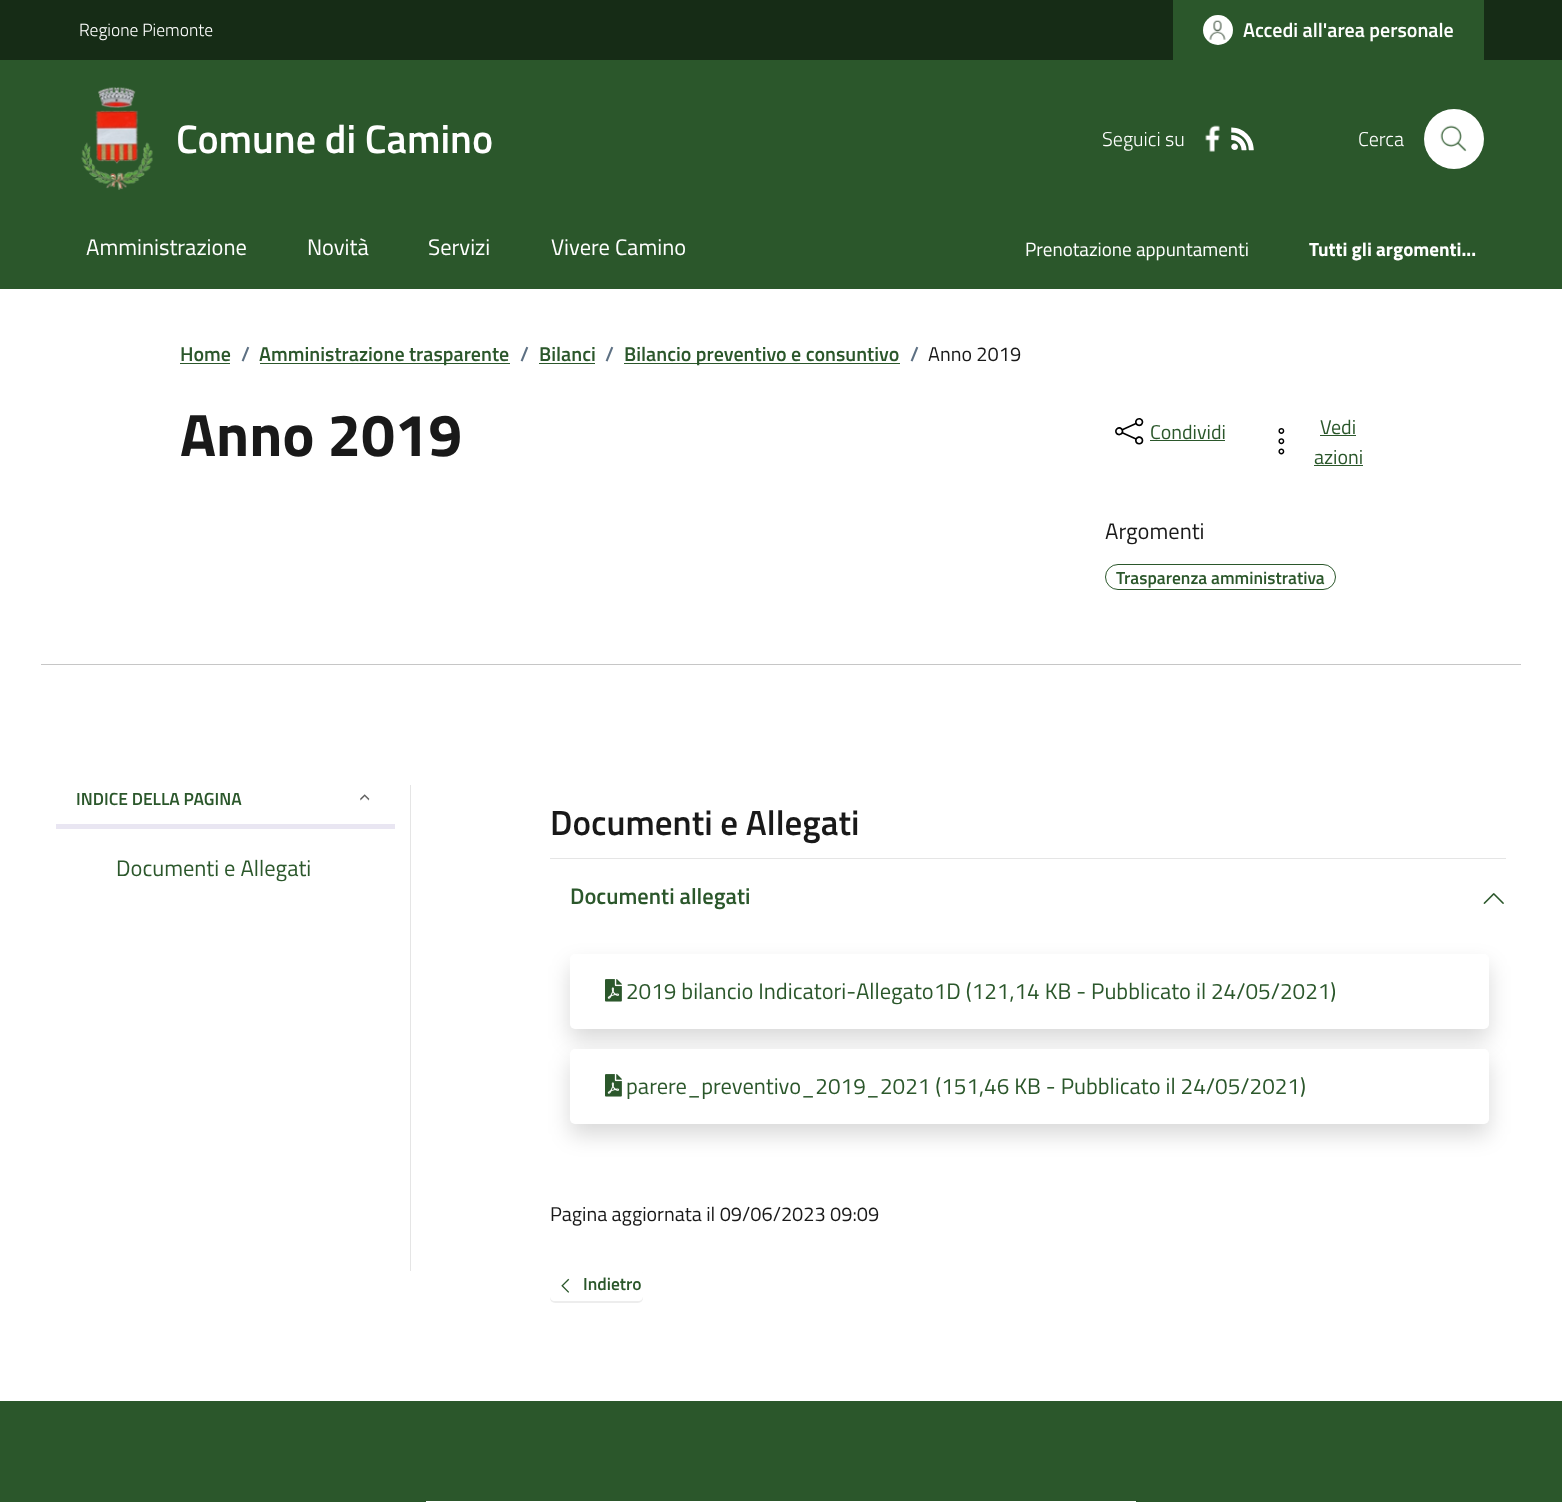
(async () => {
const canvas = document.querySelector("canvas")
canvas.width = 1562
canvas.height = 1502
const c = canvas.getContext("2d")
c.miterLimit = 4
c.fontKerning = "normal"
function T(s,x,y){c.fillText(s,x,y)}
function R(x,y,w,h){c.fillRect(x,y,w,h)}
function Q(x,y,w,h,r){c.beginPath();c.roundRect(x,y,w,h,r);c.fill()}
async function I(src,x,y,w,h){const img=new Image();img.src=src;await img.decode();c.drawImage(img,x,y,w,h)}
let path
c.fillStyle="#fff"
R(0,0,1562,1502)
c.fillStyle="#162c16"
R(0,0,1562,60)
c.font="300 17.5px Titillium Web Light"
c.fillStyle="#fff"
T("Regione Piemonte",79,36)
c.fillStyle="#2b572b"
R(1173,0,311,60)
c.fillStyle="#fff"
c.beginPath()
c.arc(1218,30,15,0,7)
c.fill()
await I("1.png",1209,20,17,20)
c.font="600 20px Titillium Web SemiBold"
T("Accedi all'area personale",1243,37)
c.fillStyle="#2b572b"
R(0,60,1562,229)
await I("2.png",81,87,72,103)
c.font="600 40px Titillium Web SemiBold"
c.fillStyle="#fff"
T("Comune di Camino",176,153)
c.font="300 20px Titillium Web Light"
T("Seguici su",1102,146)
await I("3.png",1205,125,15,27)
await I("4.png",1231,127,23,24)
T("Cerca",1358,146)
c.beginPath()
c.arc(1454,139,30,0,7)
c.fill()
await I("5.png",1440,125,27,27)
c.font="22.5px Titillium Web"
T("Amministrazione",86,255)
T("Novità",307,255)
T("Servizi",428,255)
T("Vivere Camino",551,255)
c.font="19.1px Titillium Web"
T("Prenotazione appuntamenti",1025,256)
c.font="bold 19.1px Titillium Web"
T("Tutti gli argomenti...",1309,256)
c.font="600 20px Titillium Web SemiBold"
c.fillStyle="#2b572b"
T("Home",180,361)
R(180,363,50,1)
c.fillStyle="#5d7083"
T("/",241,361)
c.fillStyle="#2b572b"
R(260,363,250,1)
T("Amministrazione trasparente",259,361)
c.fillStyle="#5d7083"
T("/",520,361)
c.fillStyle="#2b572b"
T("Bilanci",539,361)
R(539,363,56,1)
c.fillStyle="#5d7083"
T("/",605,361)
c.fillStyle="#2b572b"
R(624,363,276,1)
T("Bilancio preventivo e consuntivo",624,361)
c.fillStyle="#5d7083"
T("/",910,361)
c.font="20px Titillium Web"
c.fillStyle="#191919"
T("Anno 2019",928,361)
c.font="bold 60px Titillium Web"
T("Anno 2019",180,456)
await I("6.png",1115,418,29,27)
c.font="20px Titillium Web"
c.fillStyle="#2b572b"
T("Condividi",1150,439)
R(1150,440,75,1)
await I("7.png",1278,428,7,27)
T("Vedi",1320,434)
R(1320,435,36,1)
T("azioni",1314,464)
R(1314,465,49,1)
c.font="22.5px Titillium Web"
c.fillStyle="#191919"
T("Argomenti",1105,539)
c.beginPath()
c.roundRect(1105.5,564.5,230,25,12.5)
c.strokeStyle="#2b572b"
c.stroke()
c.font="600 17.5px Titillium Web SemiBold"
c.fillStyle="#2b572b"
T("Trasparenza amministrativa",1116,584)
c.fillStyle="#c6c6c6"
R(41,664,1480,1)
c.fillStyle="#e5e5e5"
R(410,785,1,486)
c.fillStyle="#2b572b"
T("INDICE DELLA PAGINA",76,805)
await I("8.png",360,794,10,7)
c.fillStyle="#e9e6f2"
R(56,824,339,5)
c.font="22.5px Titillium Web"
c.fillStyle="#2b572b"
T("Documenti e Allegati",116,876)
c.font="600 35px Titillium Web SemiBold"
c.fillStyle="#191919"
T("Documenti e Allegati",550,835)
c.fillStyle="#e5e5e5"
R(550,858,956,1)
c.font="600 22.5px Titillium Web SemiBold"
c.fillStyle="#2b572b"
T("Documenti allegati",570,904)
await I("9.png",1483,893,21,11)
c.fillStyle="#00000026"
c.filter="blur(11px)"
c.beginPath()
c.roundRect(570,965,919,75,5)
c.fill()
c.filter="none"
c.fillStyle="#fff"
Q(570,954,919,75,5)
await I("10.png",605,979,17,23)
c.font="22.5px Titillium Web"
c.fillStyle="#2b572b"
T("2019 bilancio Indicatori-Allegato1D (121,14 KB - Pubblicato il 24/05/2021)",626,999)
c.fillStyle="#00000026"
c.filter="blur(11px)"
c.beginPath()
c.roundRect(570,1060,919,75,5)
c.fill()
c.filter="none"
c.fillStyle="#fff"
Q(570,1049,919,75,5)
await I("10.png",605,1074,17,23)
c.fillStyle="#2b572b"
T("parere_preventivo_2019_2021 (151,46 KB - Pubblicato il 24/05/2021)",626,1094)
c.font="20px Titillium Web"
c.fillStyle="#191919"
T("Pagina aggiornata il 09/06/2023 09:09",550,1221)
c.save()
path = new Path2D("M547 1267h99v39h-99zm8 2h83c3 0 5 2 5 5v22c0 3-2 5-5 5h-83c-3 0-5-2-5-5v-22c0-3 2-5 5-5z")
c.clip(path,"evenodd")
c.fillStyle="#00000012"
c.filter="blur(0.5px)"
c.beginPath()
c.roundRect(550,1270,93,33,5)
c.fill()
c.filter="none"
c.restore()
await I("11.png",561,1278,9,15)
c.font="600 17.5px Titillium Web SemiBold"
c.fillStyle="#2b572b"
T("Indietro",583,1290)
R(0,1401,1562,101)
c.fillStyle="#fff"
R(426,1501,710,1)
})()
